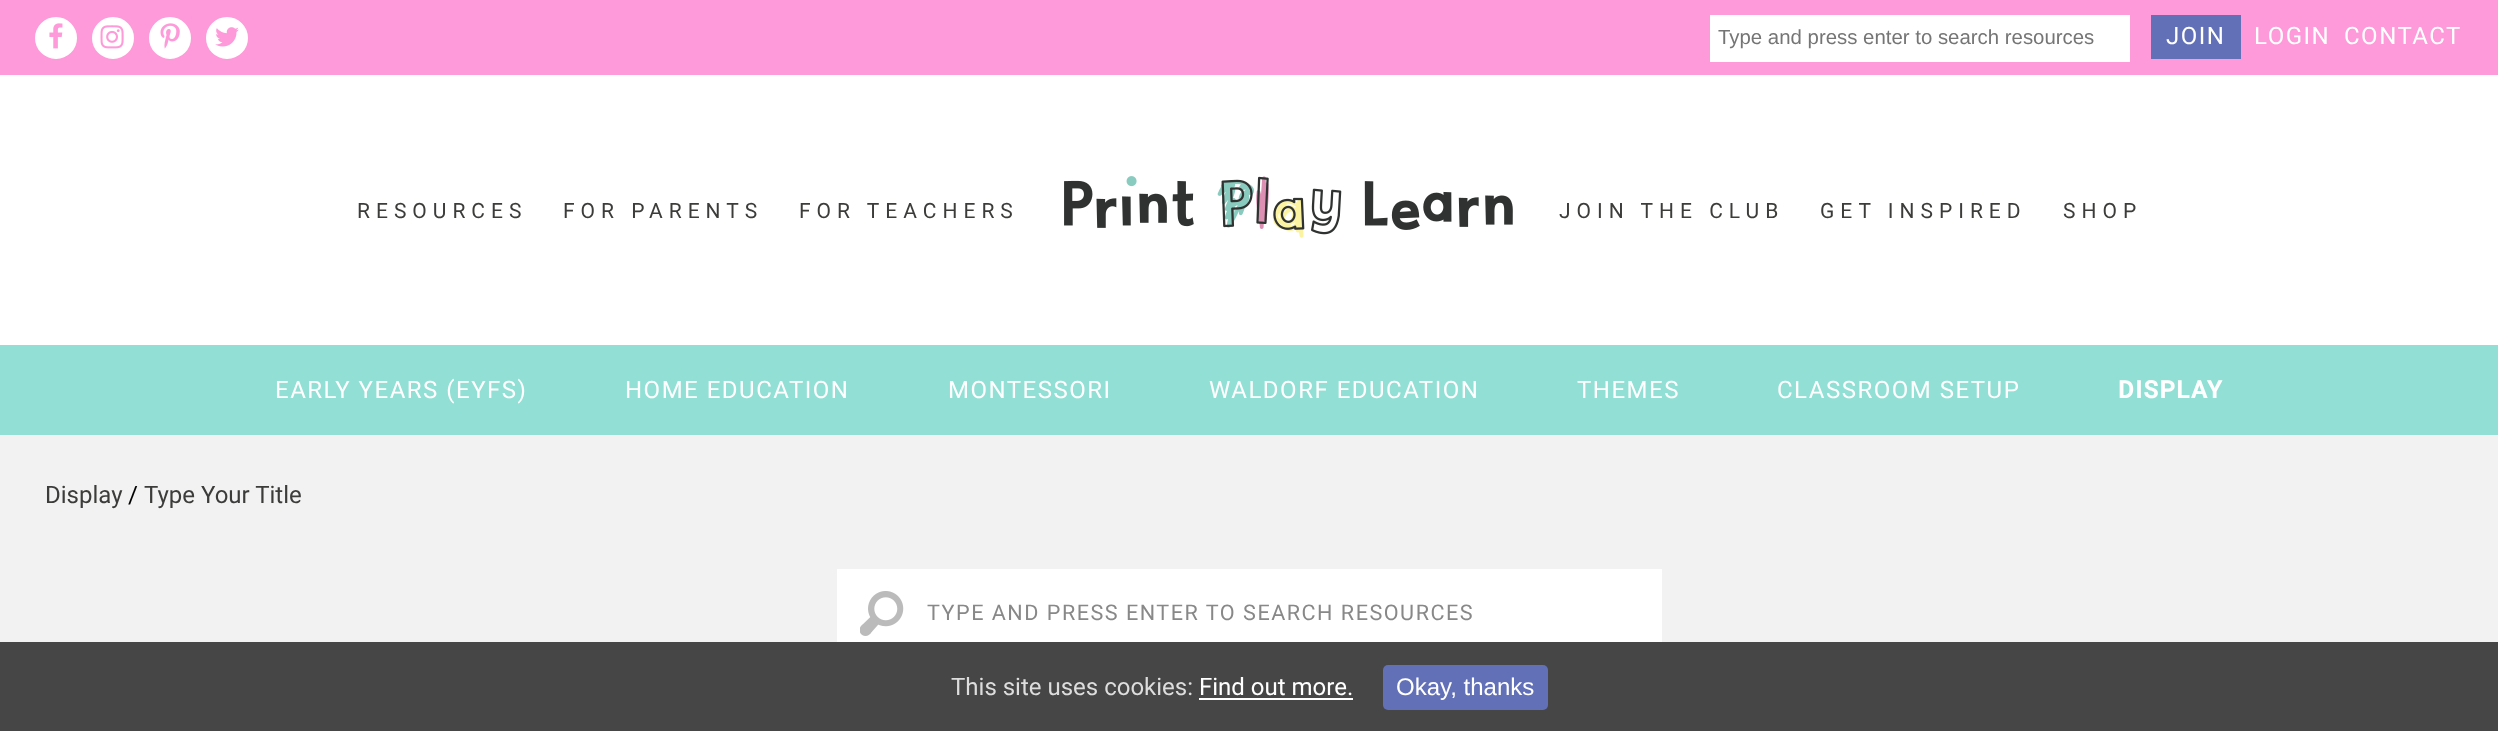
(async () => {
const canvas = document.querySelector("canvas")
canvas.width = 2498
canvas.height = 731
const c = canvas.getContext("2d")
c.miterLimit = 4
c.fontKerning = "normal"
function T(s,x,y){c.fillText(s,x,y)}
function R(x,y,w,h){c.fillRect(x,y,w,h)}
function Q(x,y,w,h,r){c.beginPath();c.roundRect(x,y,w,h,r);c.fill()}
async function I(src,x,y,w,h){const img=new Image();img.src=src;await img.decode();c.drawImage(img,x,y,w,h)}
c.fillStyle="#fff"
R(0,0,2498,731)
c.fillStyle="#fe9ad9"
R(0,0,2498,75)
c.fillStyle="#fff"
c.beginPath()
c.arc(56,38,20,0,7)
c.fill()
c.strokeStyle="#fff"
c.lineWidth=2
c.stroke()
await I("1.png",49,23,14,26)
c.beginPath()
c.arc(113,38,20,0,7)
c.fill()
c.stroke()
await I("2.png",100,25,24,24)
c.beginPath()
c.arc(170,38,20,0,7)
c.fill()
c.stroke()
await I("3.png",160,23,20,26)
c.beginPath()
c.arc(227,38,20,0,7)
c.fill()
c.stroke()
await I("4.png",215,27,24,20)
R(1710,15,420,47)
c.font="20.4px Liberation Sans"
c.fillStyle="#757575"
T("Type and press enter to search resources",1718,44)
c.fillStyle="#6270b7"
R(2151,15,90,44)
c.letterSpacing="1.5px"
c.font="24px Roboto"
c.fillStyle="#fff"
T("JOIN",2166,44)
T("LOGIN",2254,44)
T("CONTACT",2344,44)
c.letterSpacing="6px"
c.font="21px Roboto"
c.fillStyle="#3c3c3b"
T("RESOURCES",357,218)
T("FOR PARENTS",563,218)
T("FOR TEACHERS",799,218)
await I("5.png",1064,176,449,62)
T("JOIN THE CLUB",1559,218)
T("GET INSPIRED",1820,218)
T("SHOP",2063,218)
c.fillStyle="#92e0d5"
R(0,345,2498,90)
c.letterSpacing="1.5px"
c.font="24px Roboto"
c.fillStyle="#fff"
T("EARLY YEARS (EYFS)",275,398)
T("HOME EDUCATION",625,398)
T("MONTESSORI",948,398)
T("WALDORF EDUCATION",1209,398)
T("THEMES",1577,398)
T("CLASSROOM SETUP",1777,398)
c.font="bold 24px Roboto"
T("DISPLAY",2118,398)
c.fillStyle="#f3f2f2"
R(0,435,2498,207)
c.letterSpacing="0px"
c.font="24px Roboto"
c.fillStyle="#3c3c3b"
T("Display",45,503)
c.fillStyle="#000"
T("/",128,503)
c.fillStyle="#3c3c3b"
T("Type Your Title",144,503)
c.fillStyle="#fff"
R(837,569,825,73)
await I("6.png",860,591,44,45)
c.letterSpacing="1.5px"
c.font="21.6px Roboto"
c.fillStyle="#888"
T("TYPE AND PRESS ENTER TO SEARCH RESOURCES",927,620)
c.fillStyle="#464646"
R(0,642,2498,89)
c.letterSpacing="0px"
c.font="24px Roboto"
c.fillStyle="#ddd"
T("This site uses cookies:",951,695)
c.fillStyle="#fff"
T("Find out more.",1199,695)
R(1199,698,154,2)
c.fillStyle="#6270b7"
Q(1383,665,165,45,5)
c.font="24px Liberation Sans"
c.fillStyle="#fff"
T("Okay, thanks",1396,695)
})()
